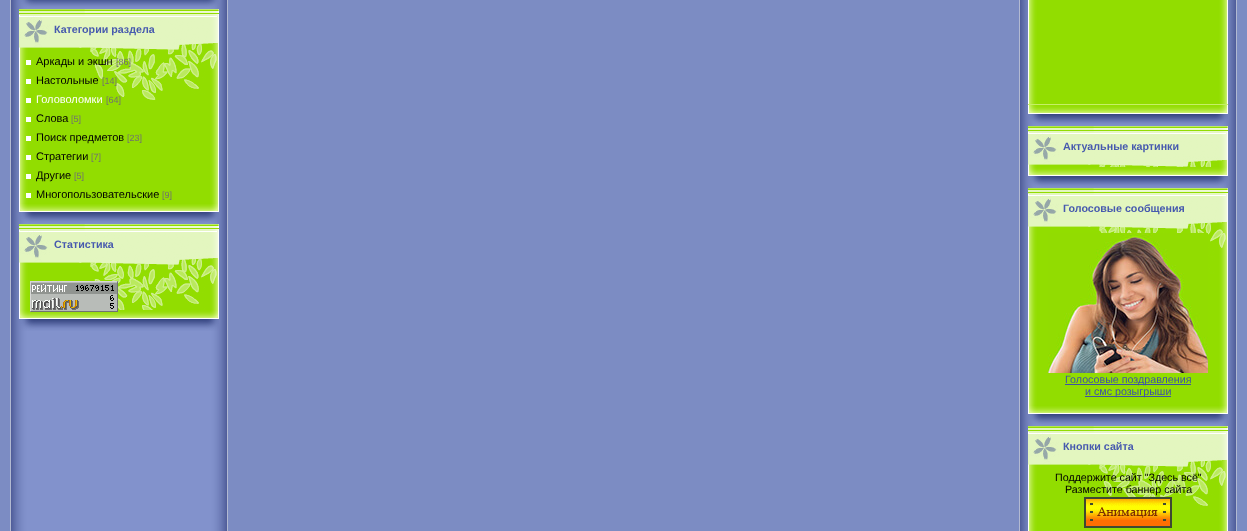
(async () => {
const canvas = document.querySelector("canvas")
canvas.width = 1247
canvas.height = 531
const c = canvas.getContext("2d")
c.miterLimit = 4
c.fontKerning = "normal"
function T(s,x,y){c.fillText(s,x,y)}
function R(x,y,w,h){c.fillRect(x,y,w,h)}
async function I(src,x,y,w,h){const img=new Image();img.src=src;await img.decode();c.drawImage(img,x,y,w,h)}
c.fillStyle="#7c8cc3"
R(0,0,1247,531)
await I("1.png",10,0,218,531)
await I("2.png",19,0,200,9)
await I("3.png",19,49,200,155)
await I("4.png",19,9,200,40)
c.font="bold 10.7px Liberation Sans"
c.fillStyle="#4659ae"
T("Категории раздела",54,33)
await I("5.png",19,204,200,20)
c.fillStyle="#fff"
R(26,60,5,5)
c.font="11px Liberation Sans"
c.fillStyle="#000"
T("Аркады и экшн",36,65)
c.font="9px Liberation Sans"
c.fillStyle="#707070"
T("[86]",116,65)
c.fillStyle="#fff"
R(26,79,5,5)
c.font="11px Liberation Sans"
c.fillStyle="#000"
T("Настольные",36,84)
c.font="9px Liberation Sans"
c.fillStyle="#707070"
T("[14]",102,84)
c.fillStyle="#fff"
R(26,98,5,5)
c.font="11px Liberation Sans"
T("Головоломки",36,103)
c.font="9px Liberation Sans"
c.fillStyle="#707070"
T("[64]",106,103)
c.fillStyle="#fff"
R(26,117,5,5)
c.font="11px Liberation Sans"
c.fillStyle="#000"
T("Слова",36,122)
c.font="9px Liberation Sans"
c.fillStyle="#707070"
T("[5]",71,122)
c.fillStyle="#fff"
R(26,136,5,5)
c.font="11px Liberation Sans"
c.fillStyle="#000"
T("Поиск предметов",36,141)
c.font="9px Liberation Sans"
c.fillStyle="#707070"
T("[23]",127,141)
c.fillStyle="#fff"
R(26,155,5,5)
c.font="11px Liberation Sans"
c.fillStyle="#000"
T("Стратегии",36,160)
c.font="9px Liberation Sans"
c.fillStyle="#707070"
T("[7]",91,160)
c.fillStyle="#fff"
R(26,174,5,5)
c.font="11px Liberation Sans"
c.fillStyle="#000"
T("Другие",36,179)
c.font="9px Liberation Sans"
c.fillStyle="#707070"
T("[5]",74,179)
c.fillStyle="#fff"
R(26,193,5,5)
c.font="11px Liberation Sans"
c.fillStyle="#000"
T("Многопользовательские",36,198)
c.font="9px Liberation Sans"
c.fillStyle="#707070"
T("[9]",162,198)
await I("6.png",19,264,200,46)
await I("4.png",19,224,200,40)
c.font="bold 10.7px Liberation Sans"
c.fillStyle="#4659ae"
T("Статистика",54,248)
await I("7.png",19,310,200,21)
await I("8.png",30,281,88,31)
await I("1.png",1019,0,218,531)
await I("9.png",1028,0,200,105)
await I("7.png",1028,105,200,21)
await I("10.png",1028,166,200,1)
await I("4.png",1028,126,200,40)
T("Актуальные картинки",1063,150)
await I("7.png",1028,167,200,21)
await I("11.png",1028,228,200,178)
await I("4.png",1028,188,200,40)
T("Голосовые сообщения",1063,212)
await I("5.png",1028,406,200,20)
await I("12.png",1048,233,160,140)
c.fillStyle="#3f53a4"
R(1065,384,126,1)
c.font="10.7px Liberation Sans"
T("Голосовые поздравления",1065,383)
R(1085,396,86,1)
T("и смс розыгрыши",1085,395)
await I("13.png",1028,466,200,65)
await I("4.png",1028,426,200,40)
c.font="bold 10.7px Liberation Sans"
c.fillStyle="#4659ae"
T("Кнопки сайта",1063,450)
c.font="10.7px Liberation Sans"
c.fillStyle="#000"
T("Поддержите сайт \"Здесь всё\"",1055,481)
T("Разместите баннер сайта",1065,493)
await I("14.png",1084,497,88,31)
})()
